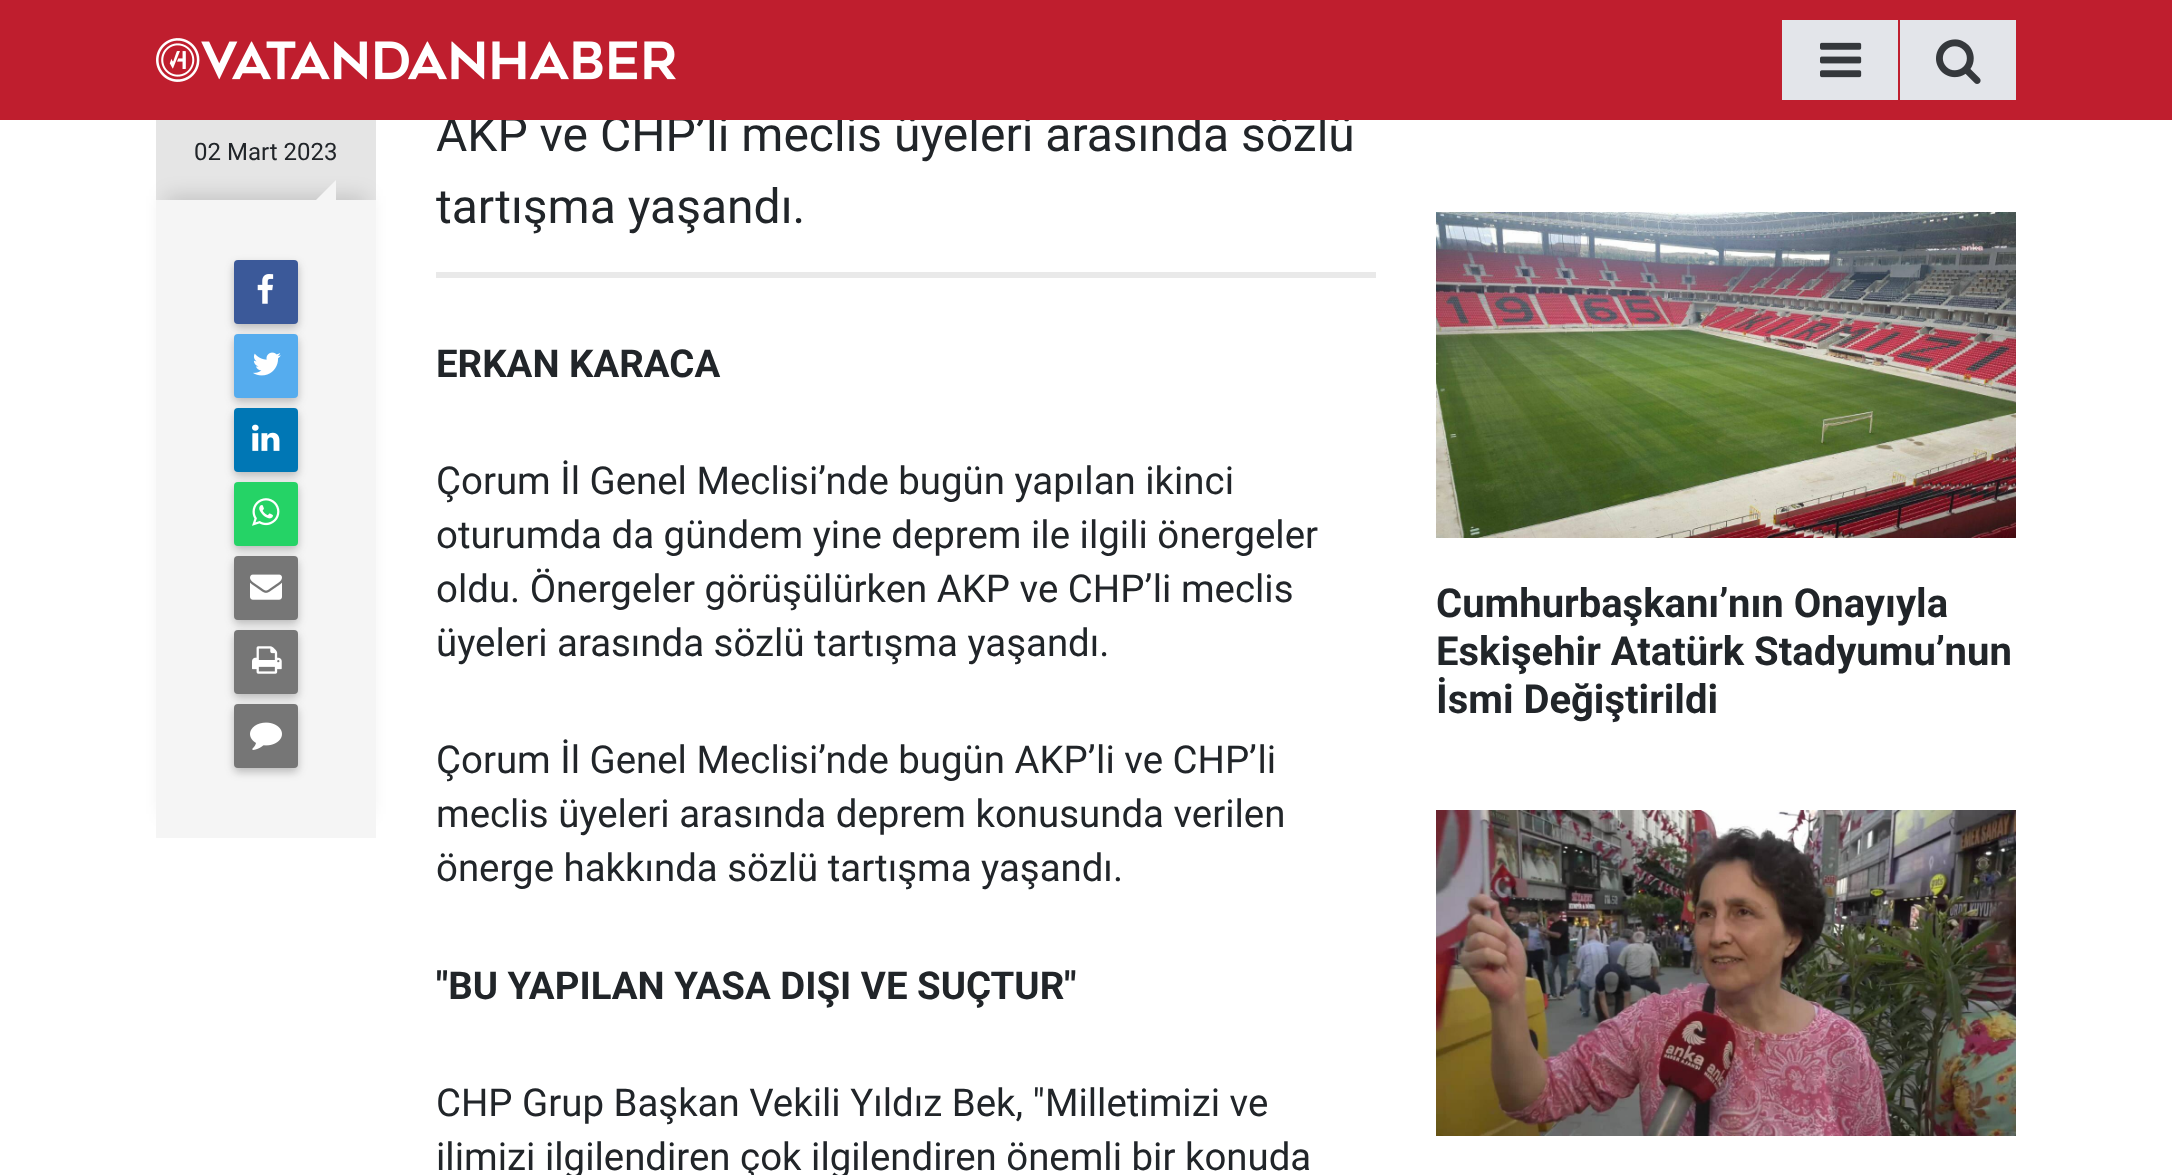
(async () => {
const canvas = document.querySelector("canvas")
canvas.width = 2172
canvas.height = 1175
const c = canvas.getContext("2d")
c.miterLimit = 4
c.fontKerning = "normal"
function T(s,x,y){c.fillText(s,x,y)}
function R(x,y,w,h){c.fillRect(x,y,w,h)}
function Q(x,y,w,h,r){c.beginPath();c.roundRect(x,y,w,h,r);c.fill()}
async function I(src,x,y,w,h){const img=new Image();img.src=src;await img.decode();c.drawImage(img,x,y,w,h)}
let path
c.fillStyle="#fff"
R(0,0,2172,1175)
c.font="48px Roboto"
c.fillStyle="#212529"
T("AKP ve CHP’li meclis üyeleri arasında sözlü",436,151)
c.fillStyle="#bf1e2e"
R(0,0,2172,120)
await I("1.png",156,38,520,44)
c.fillStyle="#e3e5ea"
R(1782,20,116,80)
await I("2.png",1820,42,42,36)
R(1900,20,116,80)
await I("3.png",1936,39,45,45)
c.fillStyle="#e5e5e5"
R(156,120,220,80)
c.font="24px Roboto"
c.fillStyle="#212529"
T("02 Mart 2023",194,160)
c.fillStyle="#00000026"
c.filter="blur(10px)"
c.beginPath()
c.rect(166,196,200,618)
c.fill()
c.filter="none"
c.fillStyle="#f5f5f5"
R(156,200,220,638)
path = new Path2D("M336 200h-20l20-20z")
c.fill(path)
c.fillStyle="#3232324d"
c.filter="blur(4px)"
c.beginPath()
c.roundRect(234,264,64,64,4)
c.fill()
c.filter="none"
c.fillStyle="#3b5999"
Q(234,260,64,64,4)
await I("4.png",257,274,17,30)
c.fillStyle="#3232324d"
c.filter="blur(4px)"
c.beginPath()
c.roundRect(234,338,64,64,4)
c.fill()
c.filter="none"
c.fillStyle="#55acee"
Q(234,334,64,64,4)
await I("5.png",253,352,28,24)
c.fillStyle="#3232324d"
c.filter="blur(4px)"
c.beginPath()
c.roundRect(234,412,64,64,4)
c.fill()
c.filter="none"
c.fillStyle="#0077b5"
Q(234,408,64,64,4)
await I("6.png",252,424,28,27)
c.fillStyle="#3232324d"
c.filter="blur(4px)"
c.beginPath()
c.roundRect(234,486,64,64,4)
c.fill()
c.filter="none"
c.fillStyle="#25d366"
Q(234,482,64,64,4)
await I("7.png",252,498,28,28)
c.fillStyle="#3232324d"
c.filter="blur(4px)"
c.beginPath()
c.roundRect(234,560,64,64,4)
c.fill()
c.filter="none"
c.fillStyle="#767676"
Q(234,556,64,64,4)
await I("8.png",250,574,32,26)
c.fillStyle="#3232324d"
c.filter="blur(4px)"
c.beginPath()
c.roundRect(234,634,64,64,4)
c.fill()
c.filter="none"
c.fillStyle="#767676"
Q(234,630,64,64,4)
await I("9.png",252,646,30,28)
c.fillStyle="#3232324d"
c.filter="blur(4px)"
c.beginPath()
c.roundRect(234,708,64,64,4)
c.fill()
c.filter="none"
c.fillStyle="#767676"
Q(234,704,64,64,4)
await I("10.png",250,722,32,28)
c.fillStyle="#e9e9e9"
R(436,272,940,6)
c.font="48px Roboto"
c.fillStyle="#212529"
T("tartışma yaşandı.",436,223)
c.font="bold 38.4px Roboto"
T("ERKAN KARACA",436,377)
c.font="38.4px Roboto"
T("Çorum İl Genel Meclisi’nde bugün yapılan ikinci",436,494)
T("oturumda da gündem yine deprem ile ilgili önergeler",436,548)
T("oldu. Önergeler görüşülürken AKP ve CHP’li meclis",436,602)
T("üyeleri arasında sözlü tartışma yaşandı.",436,656)
T("Çorum İl Genel Meclisi’nde bugün AKP’li ve CHP’li",436,773)
T("meclis üyeleri arasında deprem konusunda verilen",436,827)
T("önerge hakkında sözlü tartışma yaşandı.",436,881)
c.font="bold 38.4px Roboto"
T("\"BU YAPILAN YASA DIŞI VE SUÇTUR\"",436,999)
c.font="38.4px Roboto"
T("CHP Grup Başkan Vekili Yıldız Bek, \"Milletimizi ve",436,1116)
T("ilimizi ilgilendiren çok ilgilendiren önemli bir konuda",436,1170)
await I("11.png",1436,212,580,326)
c.font="bold 40px Roboto"
T("Cumhurbaşkanı’nın Onayıyla",1436,617)
T("Eskişehir Atatürk Stadyumu’nun",1436,665)
T("İsmi Değiştirildi",1436,713)
await I("12.png",1436,810,580,326)
})()
